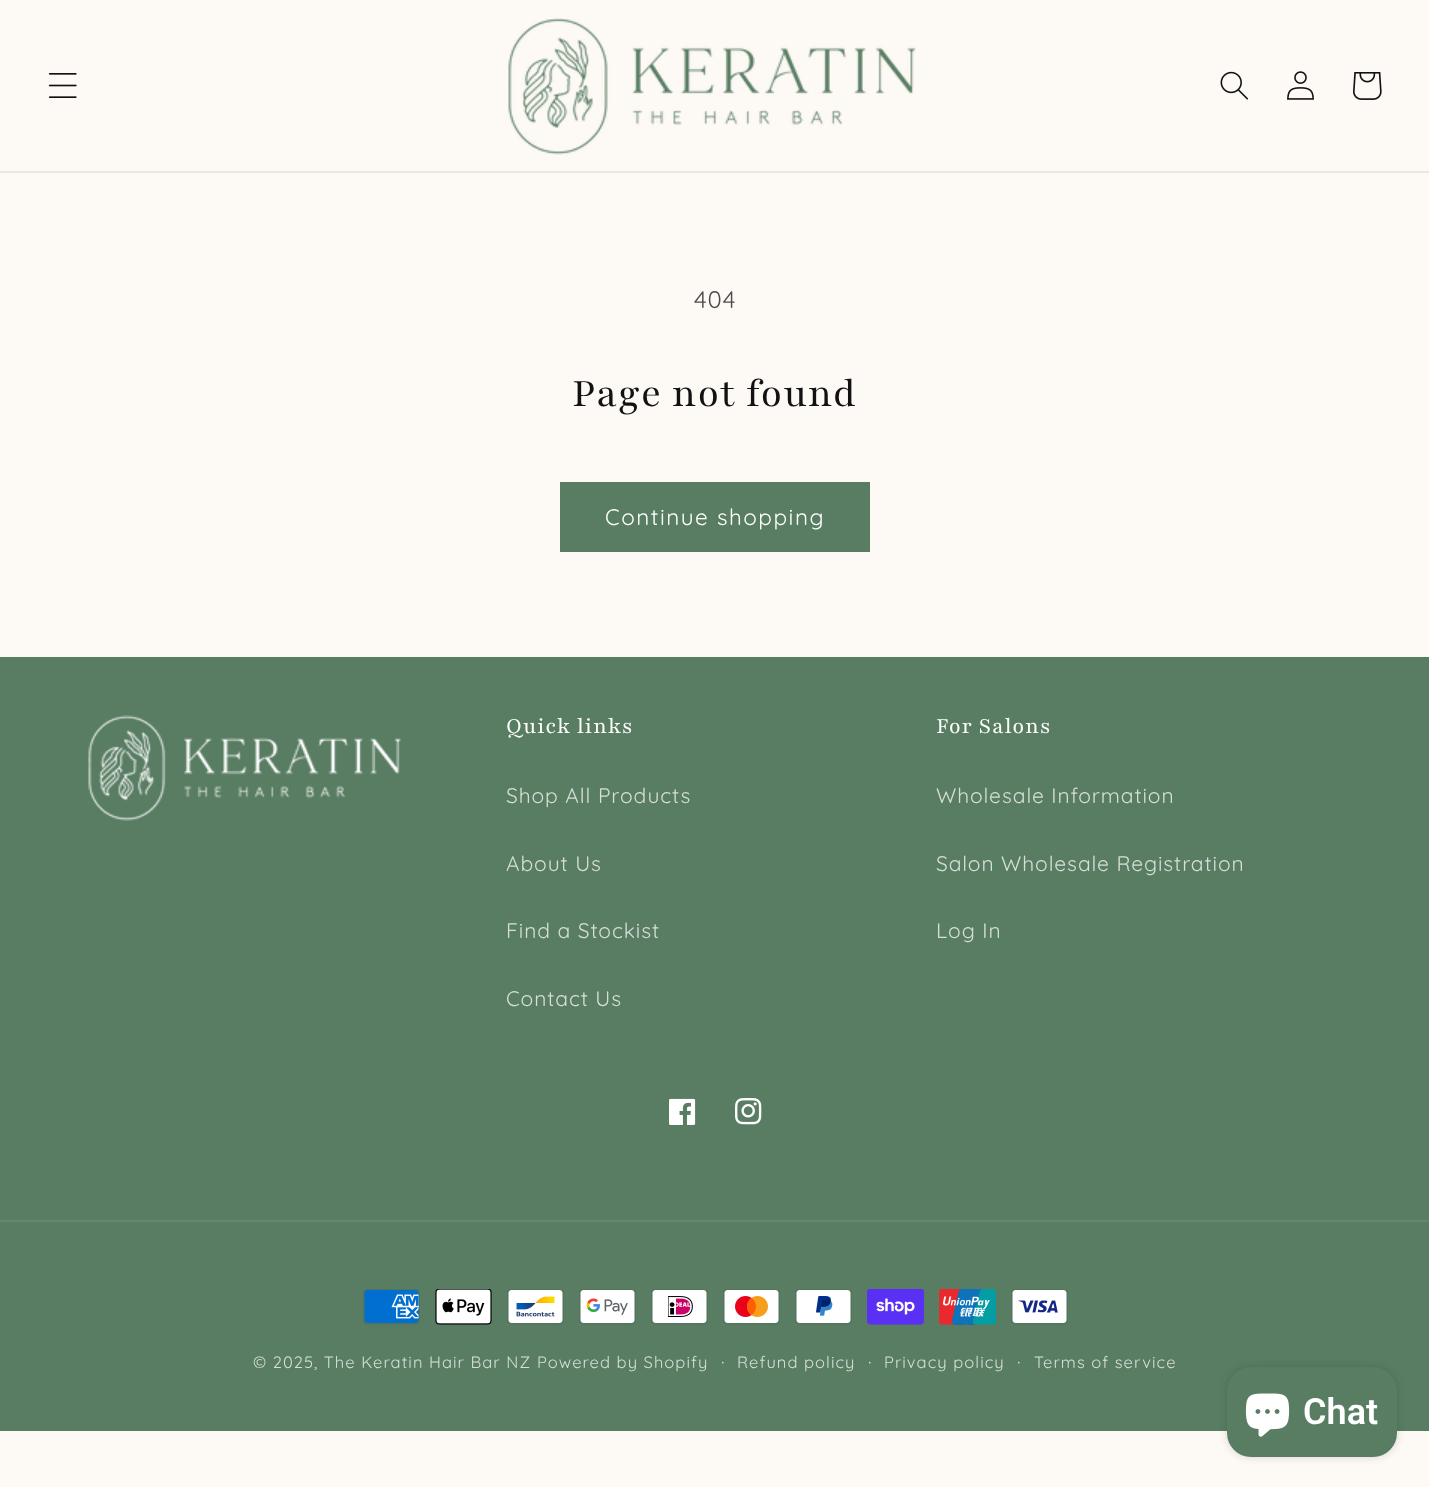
(async () => {
const canvas = document.querySelector("canvas")
canvas.width = 1429
canvas.height = 1487
const c = canvas.getContext("2d")
c.miterLimit = 4
c.fontKerning = "normal"
function T(s,x,y){c.fillText(s,x,y)}
function R(x,y,w,h){c.fillRect(x,y,w,h)}
function Q(x,y,w,h,r){c.beginPath();c.roundRect(x,y,w,h,r);c.fill()}
async function I(src,x,y,w,h){const img=new Image();img.src=src;await img.decode();c.drawImage(img,x,y,w,h)}
c.fillStyle="#fdfaf5"
R(0,0,1429,1487)
c.fillStyle="#eae7e3"
R(0,171,1429,2)
await I("1.png",48,73,29,25)
await I("2.png",508,18,408,137)
await I("3.png",1220,71,28,29)
await I("4.png",1287,71,27,29)
await I("5.png",1353,72,29,28)
c.letterSpacing="0.9px"
c.font="24px Quicksand"
c.fillStyle="#4d4c4b"
T("404",694,308)
c.font="43.5px Playfair"
c.fillStyle="#121212"
T("Page not found",572,406)
c.fillStyle="#597d63"
R(560,482,310,70)
c.letterSpacing="1.5px"
c.font="22.5px Quicksand"
c.fillStyle="#fff"
T("Continue shopping",605,525)
c.fillStyle="#597d63"
R(0,657,1429,774)
await I("6.png",88,715,313,106)
c.letterSpacing="0.9px"
c.font="24px 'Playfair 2'"
c.fillStyle="#fff"
T("Quick links",506,733)
c.font="21px Quicksand"
c.fillStyle="#d6dfd8"
T("Shop All Products",506,803)
T("About Us",506,871)
T("Find a Stockist",506,938)
T("Contact Us",506,1006)
c.font="24px 'Playfair 2'"
c.fillStyle="#fff"
T("For Salons",936,733)
c.font="21px Quicksand"
c.fillStyle="#d6dfd8"
T("Wholesale Information",936,803)
T("Salon Wholesale Registration",936,871)
T("Log In",936,938)
await I("7.png",669,1098,27,27)
await I("8.png",735,1098,27,27)
c.fillStyle="#66876f"
R(0,1220,1429,2)
await I("9.png",363,1289,57,36)
await I("10.png",435,1289,57,36)
await I("11.png",507,1289,57,36)
await I("12.png",579,1289,57,36)
await I("13.png",651,1289,57,36)
await I("14.png",723,1289,57,36)
await I("15.png",795,1289,57,36)
await I("16.png",867,1289,57,36)
await I("17.png",939,1289,57,36)
await I("18.png",1011,1289,57,36)
c.letterSpacing="1.05px"
c.font="16.5px Quicksand"
c.fillStyle="#d6dfd8"
T("© 2025, The Keratin Hair Bar NZ",253,1368)
T("Powered by Shopify",537,1368)
c.font="18px Quicksand"
T("·",721,1368)
c.font="16.5px Quicksand"
T("Refund policy",737,1368)
c.font="18px Quicksand"
T("·",868,1368)
c.font="16.5px Quicksand"
T("Privacy policy",884,1368)
c.font="18px Quicksand"
T("·",1017,1368)
c.font="16.5px Quicksand"
T("Terms of service",1034,1368)
c.fillStyle="#00000026"
c.filter="blur(4px)"
c.beginPath()
c.roundRect(1227,1367,170,90,24)
c.fill()
c.filter="none"
c.fillStyle="#597d63"
Q(1227,1367,170,90,24)
await I("19.png",1245,1393,45,44)
c.letterSpacing="0px"
c.font="600 36px Roboto"
c.fillStyle="#fff"
T("Chat",1303,1424)
})()
